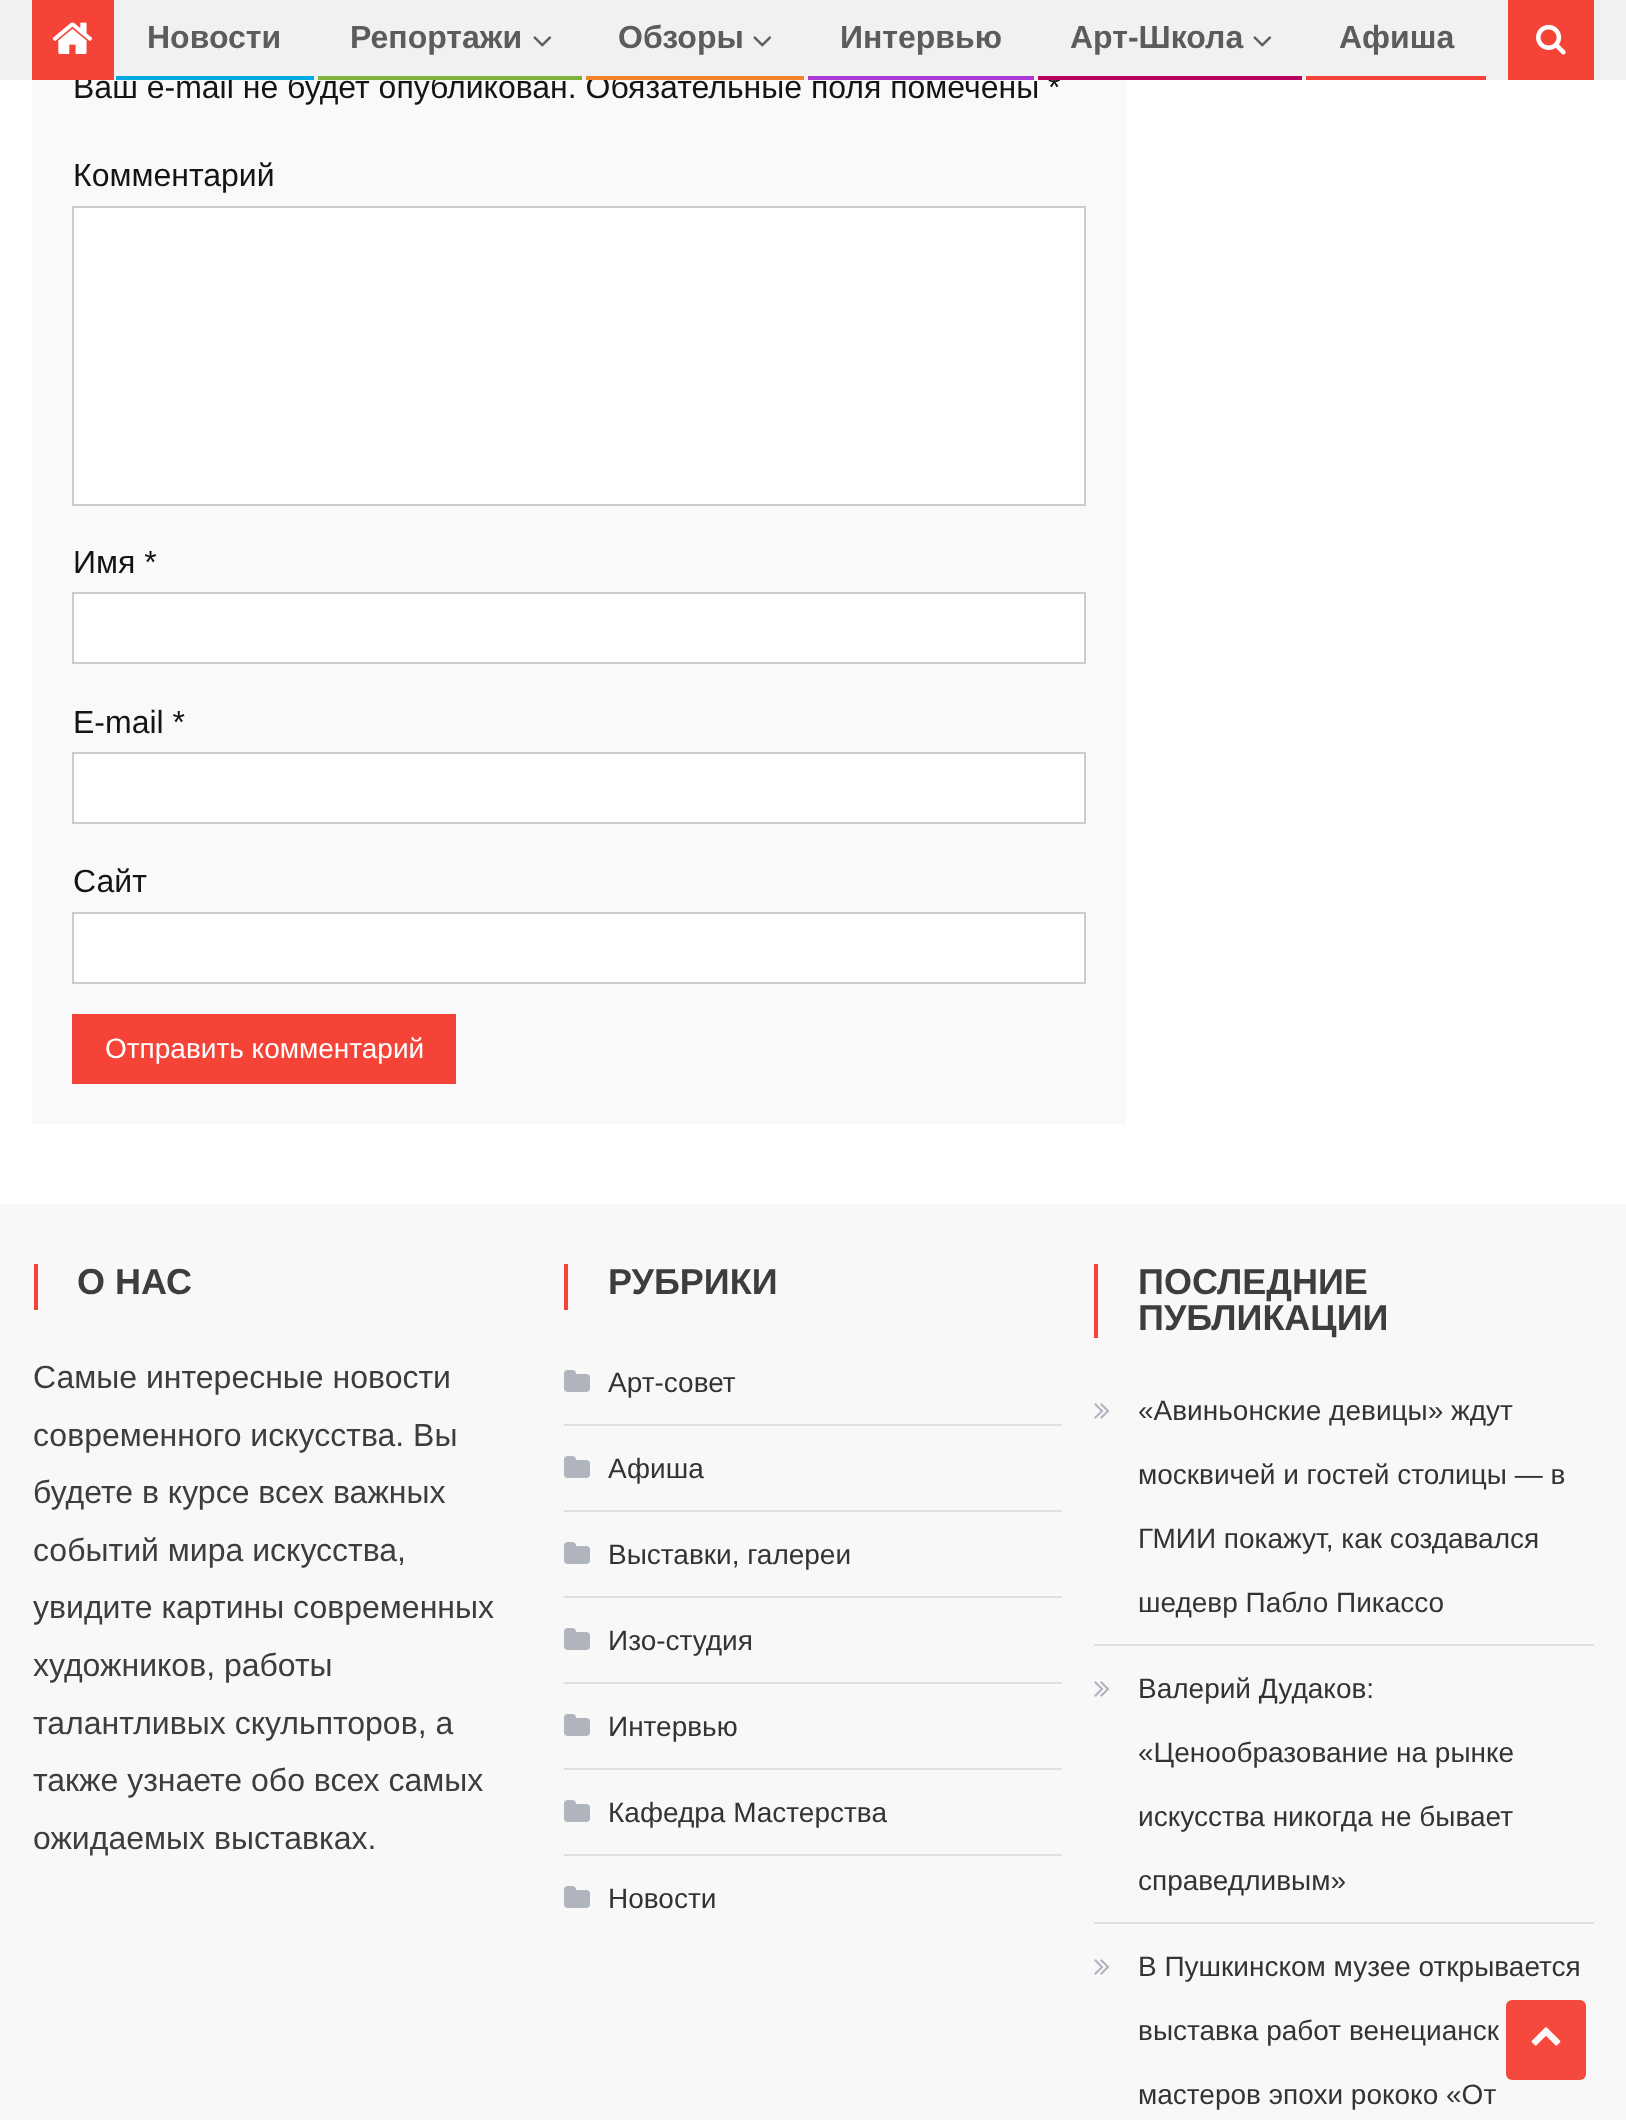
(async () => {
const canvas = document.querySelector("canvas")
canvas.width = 1626
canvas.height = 2120
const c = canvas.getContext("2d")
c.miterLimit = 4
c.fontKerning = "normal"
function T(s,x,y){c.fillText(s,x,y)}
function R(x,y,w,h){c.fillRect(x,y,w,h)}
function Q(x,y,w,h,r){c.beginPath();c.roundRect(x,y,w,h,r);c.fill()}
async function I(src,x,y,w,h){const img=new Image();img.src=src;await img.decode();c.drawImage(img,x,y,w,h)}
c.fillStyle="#fff"
R(0,0,1626,2120)
c.fillStyle="#f9f9f9"
R(32,80,1094,1044)
c.font="32px Liberation Sans"
c.fillStyle="#141414"
T("Ваш e-mail не будет опубликован. Обязательные поля помечены *",73,98)
c.fillStyle="#f1f1f1"
R(0,0,1626,80)
c.fillStyle="#f54337"
R(32,0,82,80)
await I("1.png",52,22,41,32)
c.fillStyle="#00a9e0"
R(116,76,198,4)
c.font="bold 32px Liberation Sans"
c.fillStyle="#5d5c5c"
T("Новости",147,48)
c.fillStyle="#7db338"
R(318,76,264,4)
c.fillStyle="#5d5c5c"
T("Репортажи",350,48)
await I("2.png",533,36,19,11)
c.fillStyle="#f3842a"
R(586,76,218,4)
c.fillStyle="#5d5c5c"
T("Обзоры",618,48)
await I("2.png",753,36,19,11)
c.fillStyle="#ac3bd5"
R(808,76,226,4)
c.fillStyle="#5d5c5c"
T("Интервью",840,48)
c.fillStyle="#b50060"
R(1038,76,264,4)
c.fillStyle="#5d5c5c"
T("Арт-Школа",1070,48)
await I("2.png",1253,36,19,11)
c.fillStyle="#f54337"
R(1306,76,180,4)
c.fillStyle="#5d5c5c"
T("Афиша",1339,48)
c.fillStyle="#f54337"
R(1508,0,86,80)
await I("3.png",1536,24,30,31)
c.font="32px Liberation Sans"
c.fillStyle="#141414"
T("Комментарий",73,186)
c.fillStyle="#fff"
c.beginPath()
c.rect(73,207,1012,298)
c.fill()
c.strokeStyle="#ccc"
c.lineWidth=2
c.stroke()
c.fillStyle="#141414"
T("Имя *",73,573)
c.fillStyle="#fff"
c.beginPath()
c.rect(73,593,1012,70)
c.fill()
c.stroke()
c.fillStyle="#141414"
T("E-mail *",73,733)
c.fillStyle="#fff"
c.beginPath()
c.rect(73,753,1012,70)
c.fill()
c.stroke()
c.fillStyle="#141414"
T("Сайт",73,892)
c.fillStyle="#fff"
c.beginPath()
c.rect(73,913,1012,70)
c.fill()
c.stroke()
c.fillStyle="#f54337"
R(72,1014,384,70)
c.font="28px Liberation Sans"
c.fillStyle="#fff"
T("Отправить комментарий",105,1058)
c.fillStyle="#f8f8f8"
R(0,1204,1626,916)
c.fillStyle="#f54337"
R(34,1264,4,46)
c.font="bold 36px Liberation Sans"
c.fillStyle="#3d3d3d"
T("О НАС",77,1294)
c.font="32px Liberation Sans"
T("Самые интересные новости",33,1388)
T("современного искусства. Вы",33,1446)
T("будете в курсе всех важных",33,1503)
T("событий мира искусства,",33,1561)
T("увидите картины современных",33,1618)
T("художников, работы",33,1676)
T("талантливых скульпторов, а",33,1734)
T("также узнаете обо всех самых",33,1791)
T("ожидаемых выставках.",33,1849)
c.fillStyle="#f54337"
R(564,1264,4,46)
c.font="bold 36px Liberation Sans"
c.fillStyle="#3d3d3d"
T("РУБРИКИ",608,1294)
c.fillStyle="#dfdfdf"
R(564,1424,498,2)
await I("4.png",564,1370,26,22)
c.font="28px Liberation Sans"
c.fillStyle="#333"
T("Арт-совет",608,1392)
c.fillStyle="#dfdfdf"
R(564,1510,498,2)
await I("4.png",564,1456,26,22)
c.fillStyle="#333"
T("Афиша",608,1478)
c.fillStyle="#dfdfdf"
R(564,1596,498,2)
await I("4.png",564,1542,26,22)
c.fillStyle="#333"
T("Выставки, галереи",608,1564)
c.fillStyle="#dfdfdf"
R(564,1682,498,2)
await I("4.png",564,1628,26,22)
c.fillStyle="#333"
T("Изо-студия",608,1650)
c.fillStyle="#dfdfdf"
R(564,1768,498,2)
await I("4.png",564,1714,26,22)
c.fillStyle="#333"
T("Интервью",608,1736)
c.fillStyle="#dfdfdf"
R(564,1854,498,2)
await I("4.png",564,1800,26,22)
c.fillStyle="#333"
T("Кафедра Мастерства",608,1822)
await I("4.png",564,1886,26,22)
T("Новости",608,1908)
c.fillStyle="#f54337"
R(1094,1264,4,74)
c.font="bold 36px Liberation Sans"
c.fillStyle="#3d3d3d"
T("ПОСЛЕДНИЕ",1138,1294)
T("ПУБЛИКАЦИИ",1138,1330)
c.fillStyle="#dfdfdf"
R(1094,1644,500,2)
await I("5.png",1094,1403,16,16)
c.font="28px Liberation Sans"
c.fillStyle="#333"
T("«Авиньонские девицы» ждут",1138,1420)
T("москвичей и гостей столицы — в",1138,1484)
T("ГМИИ покажут, как создавался",1138,1548)
T("шедевр Пабло Пикассо",1138,1612)
c.fillStyle="#dfdfdf"
R(1094,1922,500,2)
await I("5.png",1094,1681,16,16)
c.fillStyle="#333"
T("Валерий Дудаков:",1138,1698)
T("«Ценообразование на рынке",1138,1762)
T("искусства никогда не бывает",1138,1826)
T("справедливым»",1138,1890)
await I("5.png",1094,1959,16,16)
T("В Пушкинском музее открывается",1138,1976)
T("выставка работ венецианск",1138,2040)
T("мастеров эпохи рококо «От",1138,2104)
c.fillStyle="#f54337f7"
Q(1506,2000,80,80,6)
await I("6.png",1531,2027,30,19)
})()
